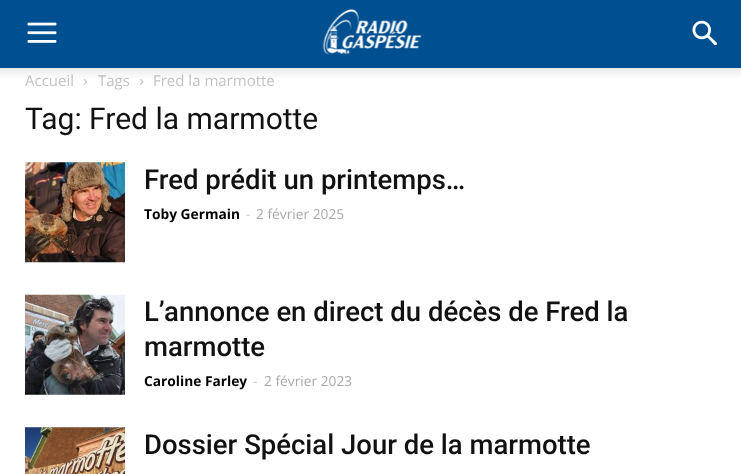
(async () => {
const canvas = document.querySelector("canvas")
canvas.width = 741
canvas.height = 474
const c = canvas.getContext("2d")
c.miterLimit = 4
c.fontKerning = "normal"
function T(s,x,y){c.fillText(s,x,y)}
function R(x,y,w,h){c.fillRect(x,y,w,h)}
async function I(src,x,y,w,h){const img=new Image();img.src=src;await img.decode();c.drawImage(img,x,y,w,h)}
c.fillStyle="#fff"
R(0,0,741,474)
c.fillStyle="#004f90"
R(0,0,741,68)
await I("1.png",27,22,30,21)
await I("2.png",322,9,100,46)
await I("3.png",692,20,25,26)
c.font="15px Open Sans"
c.fillStyle="#c3c3c3"
T("Accueil",25,86)
T("Tags",98,86)
T("Fred la marmotte",153,86)
await I("4.png",0,68,741,10)
await I("5.png",83,79,4,6)
await I("6.png",140,79,4,6)
c.font="30px Roboto"
c.fillStyle="#111"
T("Tag: Fred la marmotte",25,129)
await I("7.png",25,162,100,101)
c.font="500 27.5px Roboto"
T("Fred prédit un printemps…",144,189)
c.font="bold 13.75px Open Sans"
c.fillStyle="#000"
T("Toby Germain",144,219)
c.font="13.75px Open Sans"
c.fillStyle="#ccc"
T("-",246,219)
c.fillStyle="#aaa"
T("2 février 2025",256,219)
await I("8.png",25,294,100,101)
c.font="500 27.5px Roboto"
c.fillStyle="#111"
T("L’annonce en direct du décès de Fred la",144,321)
T("marmotte",144,356)
c.font="bold 13.75px Open Sans"
c.fillStyle="#000"
T("Caroline Farley",144,386)
c.font="13.75px Open Sans"
c.fillStyle="#ccc"
T("-",253,386)
c.fillStyle="#aaa"
T("2 février 2023",264,386)
await I("9.png",25,427,100,47)
c.font="500 27.5px Roboto"
c.fillStyle="#111"
T("Dossier Spécial Jour de la marmotte",144,454)
})()
